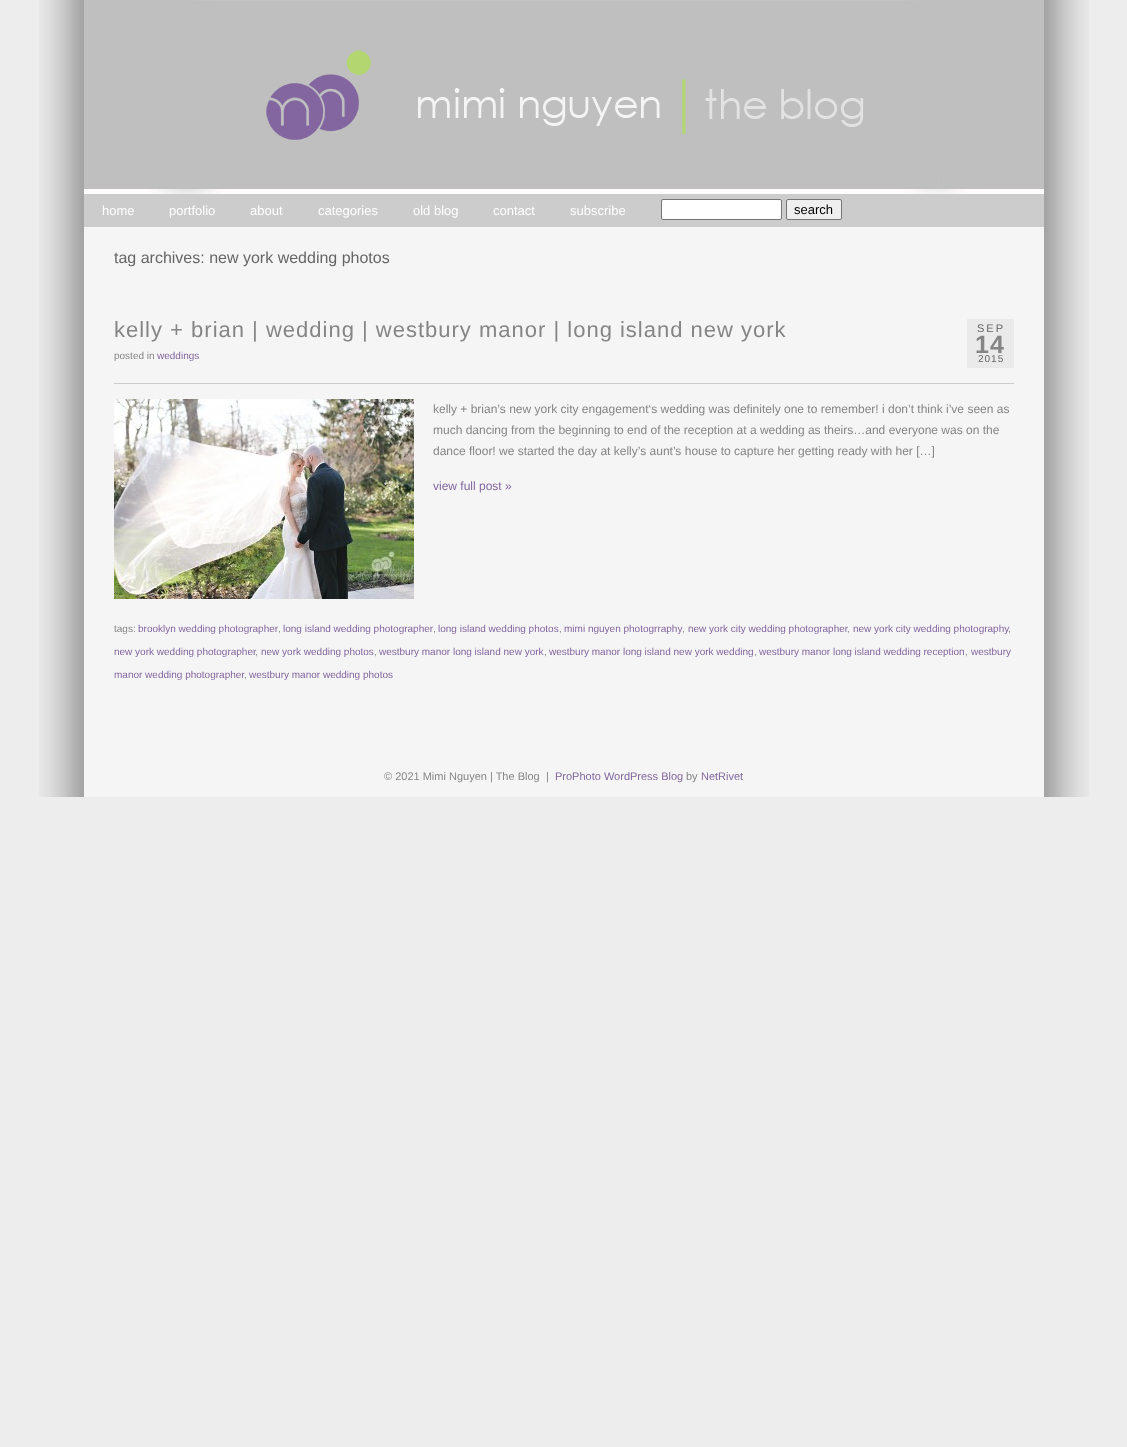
(async () => {
const canvas = document.querySelector("canvas")
canvas.width = 1127
canvas.height = 1447
const c = canvas.getContext("2d")
c.miterLimit = 4
c.fontKerning = "normal"
function T(s,x,y){c.fillText(s,x,y)}
function R(x,y,w,h){c.fillRect(x,y,w,h)}
async function I(src,x,y,w,h){const img=new Image();img.src=src;await img.decode();c.drawImage(img,x,y,w,h)}
c.fillStyle="#ededed"
R(0,0,1127,1447)
await I("1.png",39,0,45,797)
await I("2.png",1044,0,45,797)
await I("3.png",84,0,960,194)
c.fillStyle="#ccc"
R(84,194,960,33)
c.font="13px Liberation Sans"
c.fillStyle="#fff"
T("home",102,215)
T("portfolio",169,215)
T("about",250,215)
T("categories",318,215)
T("old blog",413,215)
T("contact",493,215)
T("subscribe",570,215)
c.beginPath()
c.roundRect(661.5,199.5,120,20,1.5)
c.fill()
c.strokeStyle="#767676"
c.stroke()
c.fillStyle="#efefef"
c.beginPath()
c.roundRect(786.5,199.5,55,20,1.5)
c.fill()
c.stroke()
c.fillStyle="#000"
T("search",794,214)
c.fillStyle="#f5f5f5"
R(84,227,960,570)
c.font="16px Liberation Sans"
c.fillStyle="#666"
T("tag archives: new york wedding photos",114,263)
c.letterSpacing="1px"
c.font="22px Liberation Sans"
c.fillStyle="#858585"
T("kelly + brian | wedding | westbury manor | long island new york",114,337)
c.fillStyle="#eaeaea"
R(967,319,47,49)
c.letterSpacing="2px"
c.font="11px Liberation Sans"
c.fillStyle="#666"
T("SEP",977,332)
c.letterSpacing="1px"
c.font="bold 25px Liberation Sans"
c.fillStyle="#858585"
T("14",975,353)
c.font="10px Liberation Sans"
c.fillStyle="#666"
T("2015",978,362)
c.letterSpacing="0px"
c.fillStyle="#858585"
T("posted in",114,359)
c.fillStyle="#83669f"
T("weddings",157,359)
c.fillStyle="#ccc"
R(114,383,900,1)
await I("4.png",114,399,300,200)
c.font="12px Liberation Sans"
c.fillStyle="#858585"
T("kelly + brian’s new york city engagement‘s wedding was definitely one to remember! i don’t think i’ve seen as",433,413)
T("much dancing from the beginning to end of the reception at a wedding as theirs…and everyone was on the",433,434)
T("dance floor! we started the day at kelly’s aunt’s house to capture her getting ready with her […]",433,455)
c.fillStyle="#83669f"
T("view full post »",433,490)
c.font="10px Liberation Sans"
c.fillStyle="#858585"
T("tags:",114,632)
c.fillStyle="#83669f"
T("brooklyn wedding photographer",138,632)
c.fillStyle="#858585"
T(",",278,632)
c.fillStyle="#83669f"
T("long island wedding photographer",283,632)
c.fillStyle="#858585"
T(",",433,632)
c.fillStyle="#83669f"
T("long island wedding photos",438,632)
c.fillStyle="#858585"
T(",",559,632)
c.fillStyle="#83669f"
T("mimi nguyen photogrraphy",564,632)
c.fillStyle="#858585"
T(",",682,632)
c.fillStyle="#83669f"
T("new york city wedding photographer",688,632)
c.fillStyle="#858585"
T(",",847,632)
c.fillStyle="#83669f"
T("new york city wedding photography",853,632)
c.fillStyle="#858585"
T(",",1008,632)
c.fillStyle="#83669f"
T("new york wedding photographer",114,655)
c.fillStyle="#858585"
T(",",255,655)
c.fillStyle="#83669f"
T("new york wedding photos",261,655)
c.fillStyle="#858585"
T(",",374,655)
c.fillStyle="#83669f"
T("westbury manor long island new york",379,655)
c.fillStyle="#858585"
T(",",544,655)
c.fillStyle="#83669f"
T("westbury manor long island new york wedding",549,655)
c.fillStyle="#858585"
T(",",754,655)
c.fillStyle="#83669f"
T("westbury manor long island wedding reception",759,655)
c.fillStyle="#858585"
T(",",965,655)
c.fillStyle="#83669f"
T("westbury",971,655)
T("manor wedding photographer",114,678)
c.fillStyle="#858585"
T(",",244,678)
c.fillStyle="#83669f"
T("westbury manor wedding photos",249,678)
c.font="11px Liberation Sans"
c.fillStyle="#858585"
T("© 2021 Mimi Nguyen | The Blog",384,780)
T("|",546,780)
c.fillStyle="#83669f"
T("ProPhoto WordPress Blog",555,780)
c.fillStyle="#858585"
T("by",686,780)
c.fillStyle="#83669f"
T("NetRivet",701,780)
})()
